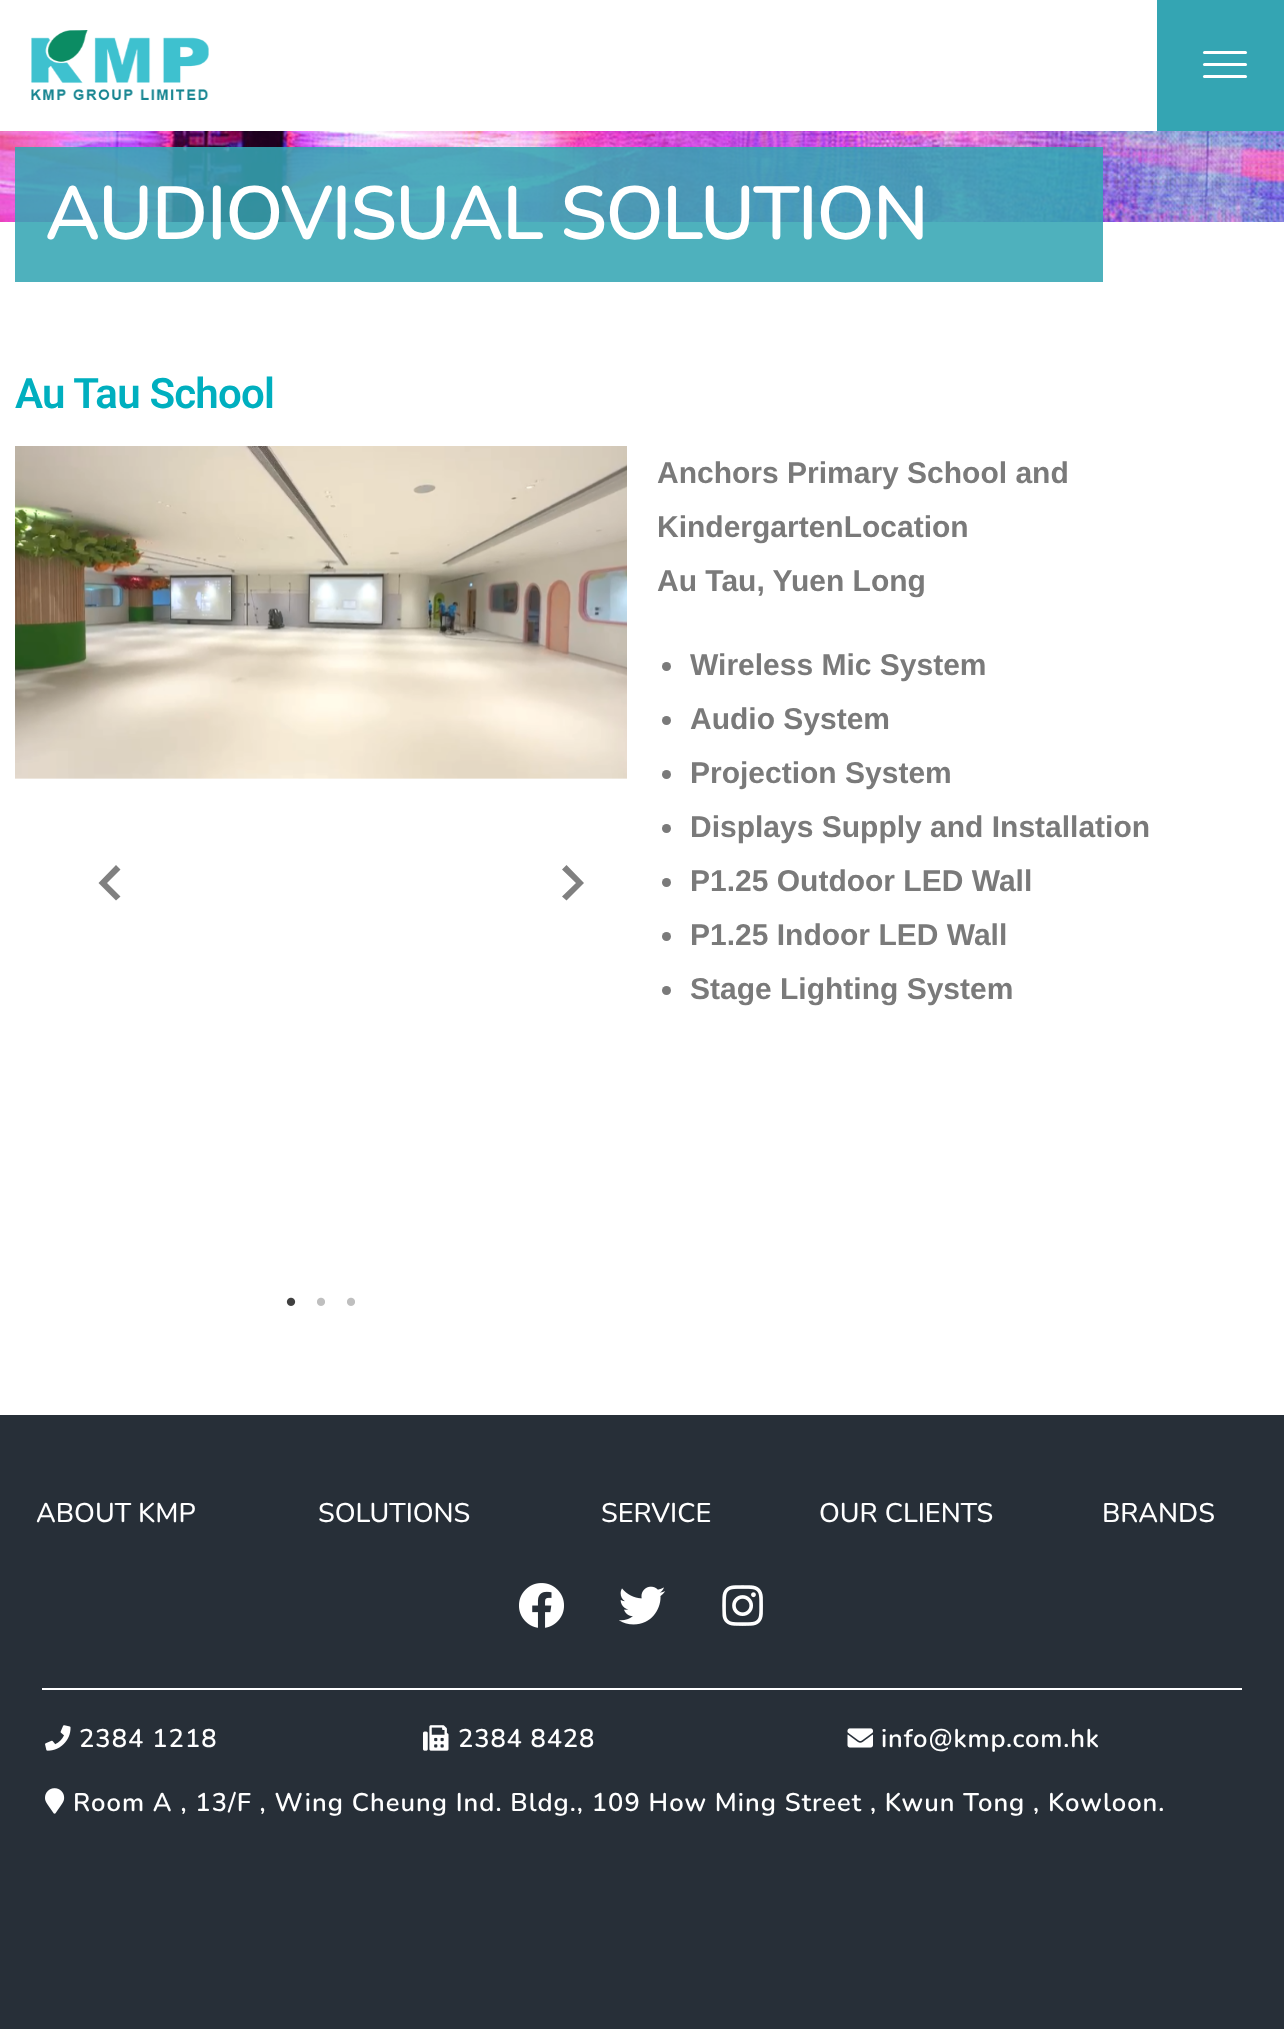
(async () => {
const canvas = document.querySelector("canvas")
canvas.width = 1284
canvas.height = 2029
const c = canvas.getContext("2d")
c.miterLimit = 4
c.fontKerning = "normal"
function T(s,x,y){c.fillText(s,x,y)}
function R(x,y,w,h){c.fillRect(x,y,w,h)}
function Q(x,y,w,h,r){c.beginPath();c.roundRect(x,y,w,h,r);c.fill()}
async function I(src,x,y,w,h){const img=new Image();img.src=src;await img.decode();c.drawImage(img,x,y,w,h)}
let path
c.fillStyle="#fff"
R(0,0,1284,2029)
await I("1.png",31,30,178,70)
c.fillStyle="#34a5b3"
R(1157,0,127,131)
c.fillStyle="#fff"
Q(1203,63,44,3,1.5)
Q(1203,51,44,3,1.5)
Q(1203,75,44,3,1.5)
await I("2.png",0,131,1284,91)
c.fillStyle="#34a5b3de"
R(15,147,1088,135)
c.letterSpacing="-1.5px"
c.font="600 75px Nunito"
c.fillStyle="#fff"
T("AUDIOVISUAL SOLUTION",45,239)
c.letterSpacing="-0.8px"
c.font="600 42px Roboto"
c.fillStyle="#00afbf"
T("Au Tau School",15,408)
await I("3.png",15,446,612,333)
c.fillStyle="#808080"
path = new Path2D("M120.5 869.5l-4.5-4.5l-17.5 18l17.5 17.5l4.5-4l-13.5-13.5z")
c.fill(path)
path = new Path2D("M566.5 865l-4.5 4.5l14 13.5l-14 13.5l4.5 4l17.5-17.5z")
c.fill(path)
await I("4.png",286,1297,10,9)
await I("5.png",317,1297,8,9)
await I("5.png",347,1297,8,9)
c.letterSpacing="0px"
c.font="bold 30px Liberation Sans"
c.fillStyle="#7a7a7a"
T("Anchors Primary School and",657,483)
T("KindergartenLocation",657,537)
T("Au Tau, Yuen Long",657,591)
c.beginPath()
c.arc(666.5,666.5,4.5,0,7)
c.fill()
T("Wireless Mic System",690,675)
c.beginPath()
c.arc(666.5,720.5,4.5,0,7)
c.fill()
T("Audio System",690,729)
c.beginPath()
c.arc(666.5,774.5,4.5,0,7)
c.fill()
T("Projection System",690,783)
c.beginPath()
c.arc(666.5,828.5,4.5,0,7)
c.fill()
T("Displays Supply and Installation",690,837)
c.beginPath()
c.arc(666.5,882.5,4.5,0,7)
c.fill()
T("P1.25 Outdoor LED Wall",690,891)
c.beginPath()
c.arc(666.5,936.5,4.5,0,7)
c.fill()
T("P1.25 Indoor LED Wall",690,945)
c.beginPath()
c.arc(666.5,990.5,4.5,0,7)
c.fill()
T("Stage Lighting System",690,999)
c.fillStyle="#272f38"
R(0,1415,1284,614)
c.font="500 27px Nunito"
c.fillStyle="#fff"
T("ABOUT KMP",36,1522)
T("SOLUTIONS",318,1522)
T("SERVICE",601,1522)
T("OUR CLIENTS",819,1522)
T("BRANDS",1102,1522)
await I("6.png",519,1583,45,45)
await I("7.png",619,1586,47,39)
await I("8.png",722,1585,41,41)
R(42,1688,1200,2)
await I("9.png",45,1725,26,26)
c.letterSpacing="1.05px"
c.font="600 25.5px Nunito"
T("2384 1218",79,1747)
await I("10.png",423,1725,26,26)
c.letterSpacing="0.9px"
T("2384 8428",458,1747)
await I("11.png",847,1728,26,20)
T("info@kmp.com.hk",881,1747)
await I("12.png",45,1788,20,26)
c.letterSpacing="1.05px"
T("Room A , 13/F , Wing Cheung Ind. Bldg., 109 How Ming Street , Kwun Tong , Kowloon.",73,1811)
})()
